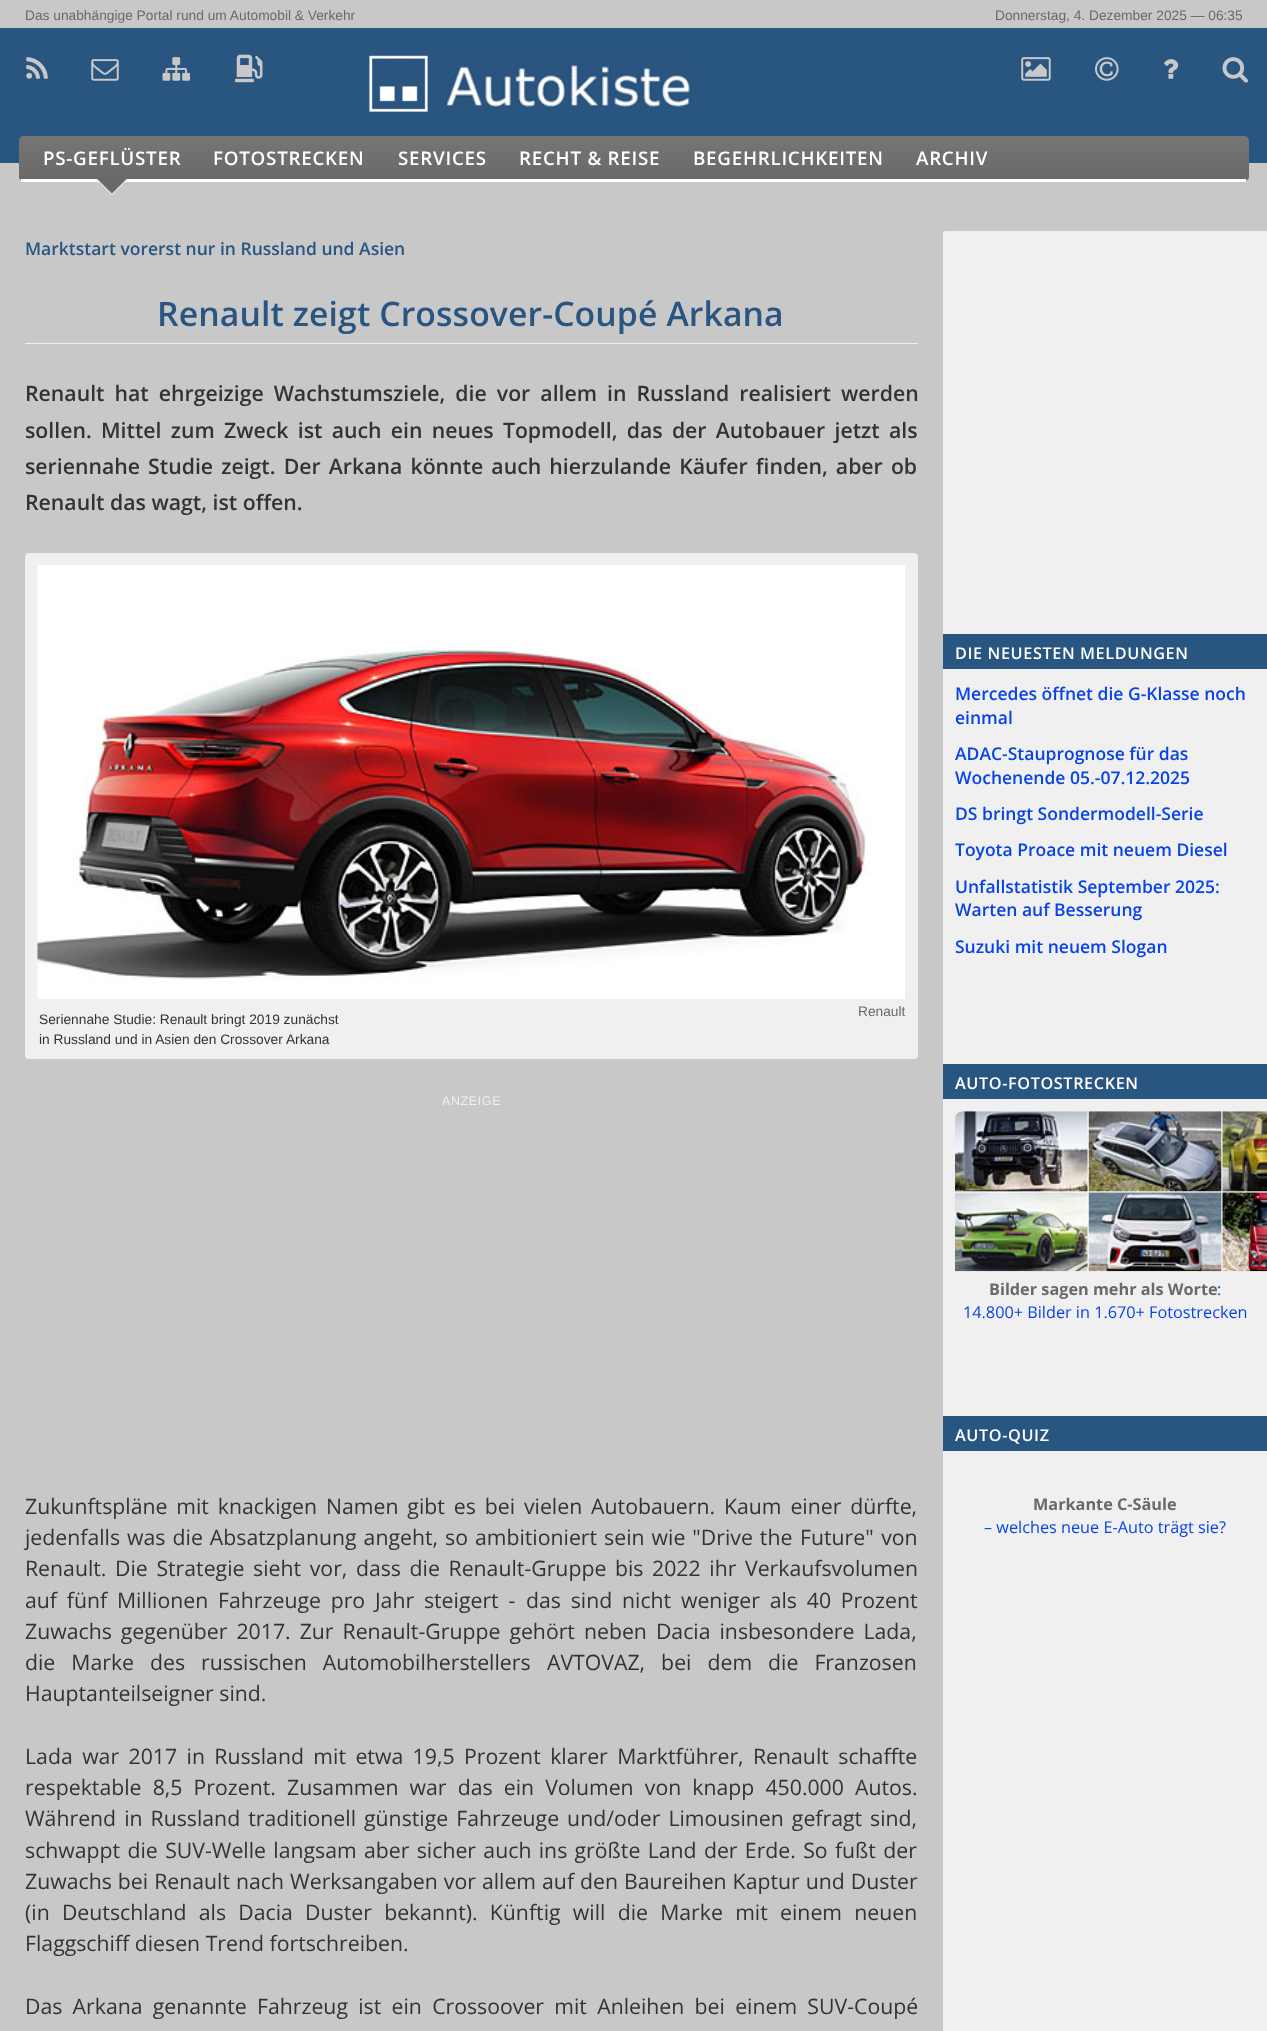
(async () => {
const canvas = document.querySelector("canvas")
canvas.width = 1267
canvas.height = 2031
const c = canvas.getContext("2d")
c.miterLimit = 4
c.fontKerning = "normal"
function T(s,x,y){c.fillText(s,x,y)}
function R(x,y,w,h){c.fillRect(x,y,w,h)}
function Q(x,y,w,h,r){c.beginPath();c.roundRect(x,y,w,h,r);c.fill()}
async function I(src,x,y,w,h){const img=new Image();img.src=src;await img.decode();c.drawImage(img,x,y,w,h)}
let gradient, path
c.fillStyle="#c8c8c8"
R(0,0,1267,2031)
c.font="13.75px Liberation Sans"
c.fillStyle="#696969"
T("Das unabhängige Portal rund um Automobil & Verkehr",25,20)
T("Donnerstag, 4. Dezember 2025 — 06:35",995,20)
c.fillStyle="#295581"
R(0,28,1267,135)
await I("1.png",26,57,22,22)
await I("2.png",91,59,28,22)
await I("3.png",162,57,28,24)
await I("4.png",235,54,28,29)
await I("5.png",369,55,322,57)
await I("6.png",1021,57,30,24)
await I("7.png",1095,57,24,24)
await I("8.png",1164,59,15,20)
await I("9.png",1222,57,26,26)
c.fillStyle="#696969"
Q(19,136,1230,45,5)
c.save()
c.beginPath()
c.roundRect(19,136,1230,45,5)
c.clip()
gradient = c.createLinearGradient(634,136,634,179)
gradient.addColorStop(0,"#767676")
gradient.addColorStop(1,"#696969")
c.fillStyle = gradient
c.beginPath()
c.roundRect(19,136,1230,43,[5,5,0,0])
c.fill()
gradient = c.createLinearGradient(634,179,634,221)
gradient.addColorStop(0,"#767676")
gradient.addColorStop(1,"#696969")
c.fillStyle = gradient
R(19,179,1230,2)
c.restore()
c.fillStyle="#fff"
R(21,179,1225,3)
c.letterSpacing="0.75px"
c.font="600 18.75px Open Sans"
T("PS-GEFLÜSTER",43,165)
T("FOTOSTRECKEN",213,165)
T("SERVICES",398,165)
T("RECHT & REISE",519,165)
T("BEGEHRLICHKEITEN",693,165)
T("ARCHIV",916,165)
await I("10.png",97,179,30,16)
c.letterSpacing="0px"
c.font="600 17.5px Open Sans"
c.fillStyle="#295581"
T("Marktstart vorerst nur in Russland und Asien",25,255)
c.fillStyle="#f0f0f0"
R(25,343,893,1)
c.letterSpacing="0.1px"
c.font="600 33.75px Open Sans"
c.fillStyle="#295581"
T("Renault zeigt Crossover-Coupé Arkana",157,326)
c.letterSpacing="0px"
c.wordSpacing="4.5px"
c.font="600 21.25px Open Sans"
c.fillStyle="#333"
T("Renault hat ehrgeizige Wachstumsziele, die vor allem in Russland realisiert werden",25,401)
c.wordSpacing="3.75px"
T("sollen. Mittel zum Zweck ist auch ein neues Topmodell, das der Autobauer jetzt als",25,438)
c.wordSpacing="2.6px"
T("seriennahe Studie zeigt. Der Arkana könnte auch hierzulande Käufer finden, aber ob",25,474)
c.wordSpacing="0px"
T("Renault das wagt, ist offen.",25,510)
c.fillStyle="#f0f0f0"
Q(25,553,893,506,4)
await I("11.png",37,565,868,434)
c.font="13.75px Liberation Sans"
c.fillStyle="#696969"
T("Renault",858,1016)
c.fillStyle="#333"
T("Seriennahe Studie: Renault bringt 2019 zunächst",39,1024)
T("in Russland und in Asien den Crossover Arkana",39,1044)
c.letterSpacing="0.6px"
c.font="12.5px Liberation Sans"
c.fillStyle="#f0f0f0"
T("ANZEIGE",442,1105)
c.letterSpacing="0px"
c.wordSpacing="3.4px"
c.font="21.25px Open Sans"
c.fillStyle="#333"
T("Zukunftspläne mit knackigen Namen gibt es bei vielen Autobauern. Kaum einer dürfte,",25,1514)
c.wordSpacing="1.5px"
T("jedenfalls was die Absatzplanung angeht, so ambitioniert sein wie \"Drive the",25,1545)
c.wordSpacing="2px"
T("Future\" von",800,1545)
c.wordSpacing="3.1px"
T("Renault. Die Strategie sieht vor, dass die Renault-Gruppe bis 2022 ihr Verkaufsvolumen",25,1576)
c.wordSpacing="4.25px"
T("auf fünf Millionen Fahrzeuge pro Jahr steigert -",25,1608)
T("das sind nicht weniger als 40 Prozent",526,1608)
c.wordSpacing="3.5px"
T("Zuwachs gegenüber 2017. Zur Renault-Gruppe gehört neben Dacia insbesondere Lada,",25,1639)
c.wordSpacing="10.5px"
T("die Marke des russischen Automobilherstellers",25,1670)
T("AVTOVAZ, bei dem die Franzosen",547,1670)
c.wordSpacing="0px"
T("Hauptanteilseigner sind.",25,1701)
c.wordSpacing="3.9px"
T("Lada war 2017 in Russland mit etwa 19,5 Prozent klarer Marktführer, Renault schaffte",25,1764)
c.wordSpacing="5.6px"
T("respektable 8,5 Prozent. Zusammen war das ein Volumen von knapp 450.000 Autos.",25,1795)
c.wordSpacing="2.5px"
T("Während in Russland traditionell günstige Fahrzeuge und/oder Limousinen gefragt sind,",25,1826)
c.wordSpacing="1.8px"
T("schwappt die SUV-Welle langsam aber sicher auch ins größte Land der Erde. So fußt der",25,1858)
c.wordSpacing="0.5px"
T("Zuwachs bei Renault nach Werksangaben vor allem auf den Baureihen Kaptur und Duster",25,1889)
c.wordSpacing="6.75px"
T("(in Deutschland als Dacia Duster bekannt). Künftig will die Marke mit einem neuen",25,1920)
c.wordSpacing="0px"
T("Flaggschiff diesen Trend fortschreiben.",25,1951)
c.wordSpacing="4.75px"
T("Das Arkana genannte Fahrzeug ist ein Crossoover mit Anleihen bei einem SUV-Coupé",25,2014)
c.fillStyle="#f0f0f0"
path = new Path2D("M945.5 231h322.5v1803h-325v-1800.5c0-1.5 1-2.5 2.5-2.5z")
c.fill(path)
c.fillStyle="#295581"
R(943,634,324,35)
c.letterSpacing="0.6px"
c.wordSpacing="0px"
c.font="600 16.25px Open Sans"
c.fillStyle="#fff"
T("DIE NEUESTEN MELDUNGEN",955,659)
c.letterSpacing="0px"
c.font="600 17.5px Open Sans"
c.fillStyle="#0844e2"
T("Mercedes öffnet die G-Klasse noch",955,700)
T("einmal",955,724)
T("ADAC-Stauprognose für das",955,760)
T("Wochenende 05.-07.12.2025",955,784)
T("DS bringt Sondermodell-Serie",955,820)
T("Toyota Proace mit neuem Diesel",955,856)
T("Unfallstatistik September 2025:",955,893)
T("Warten auf Besserung",955,916)
T("Suzuki mit neuem Slogan",955,953)
c.fillStyle="#295581"
R(943,1064,324,35)
c.letterSpacing="0.6px"
c.font="600 16.25px Open Sans"
c.fillStyle="#fff"
T("AUTO-FOTOSTRECKEN",955,1089)
await I("12.png",955,1111,312,161)
c.letterSpacing="0px"
c.font="bold 16.25px Open Sans"
c.fillStyle="#696969"
T("Bilder sagen mehr als Worte",989,1295)
c.font="16.25px Open Sans"
c.fillStyle="#0844e2"
T(":",1217,1295)
T("14.800+ Bilder in 1.670+ Fotostrecken",963,1318)
c.fillStyle="#295581"
R(943,1416,324,35)
c.letterSpacing="0.6px"
c.font="600 16.25px Open Sans"
c.fillStyle="#fff"
T("AUTO-QUIZ",955,1441)
c.letterSpacing="0px"
c.font="bold 16.25px Open Sans"
c.fillStyle="#696969"
T("Markante C-Säule",1033,1510)
c.font="16.25px Open Sans"
c.fillStyle="#0844e2"
T("– welches neue E-Auto trägt sie?",984,1533)
})()
